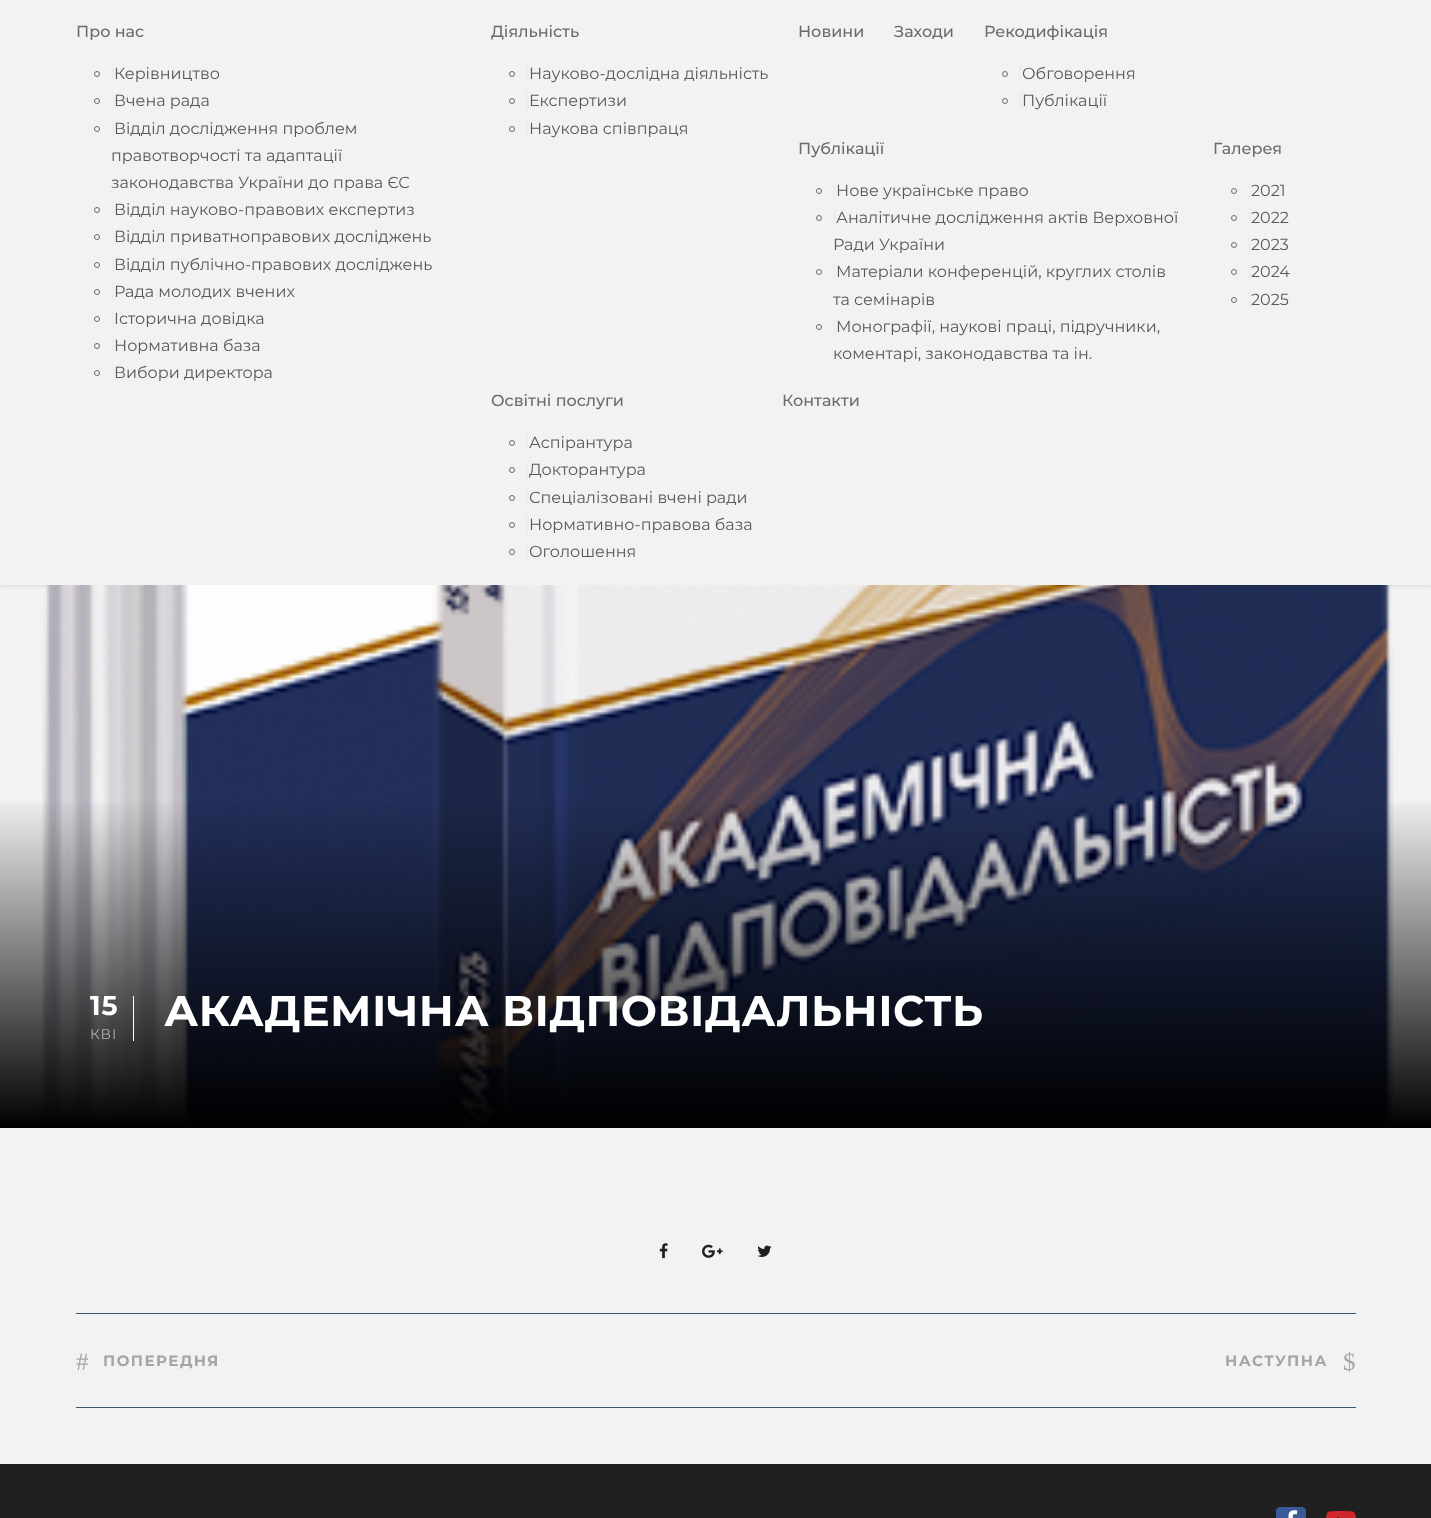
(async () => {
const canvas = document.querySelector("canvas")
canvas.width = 1431
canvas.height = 1518
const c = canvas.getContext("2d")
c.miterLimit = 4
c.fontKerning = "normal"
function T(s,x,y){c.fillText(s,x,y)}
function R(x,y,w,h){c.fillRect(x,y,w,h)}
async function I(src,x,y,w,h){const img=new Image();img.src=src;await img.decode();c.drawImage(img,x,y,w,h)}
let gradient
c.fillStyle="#f2f2f2"
R(0,0,1431,1518)
c.fillStyle="#0000001a"
c.filter="blur(2px)"
c.beginPath()
c.rect(0,-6,1431,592)
c.fill()
c.filter="none"
c.fillStyle="#f2f2f2"
R(0,0,1431,585)
c.font="500 16px Montserrat"
c.fillStyle="#6b6b6b"
T("Про нас",76,37)
c.beginPath()
c.arc(97,74,2.5,0,7)
c.strokeStyle="#6b6b6b"
c.stroke()
c.font="16px Montserrat"
c.fillStyle="#585858"
T("Керівництво",114,79)
c.fillStyle="#eee"
R(111,64,3,19)
c.beginPath()
c.arc(97,101,2.5,0,7)
c.stroke()
c.fillStyle="#585858"
T("Вчена рада",114,106)
c.fillStyle="#eee"
R(111,91,3,19)
c.beginPath()
c.arc(97,129,2.5,0,7)
c.stroke()
c.fillStyle="#585858"
T("Відділ дослідження проблем",114,134)
c.fillStyle="#eee"
R(111,119,3,19)
c.fillStyle="#585858"
T("правотворчості та адаптації",111,161)
T("законодавства України до права ЄС",111,188)
c.beginPath()
c.arc(97,210,2.5,0,7)
c.stroke()
T("Відділ науково-правових експертиз",114,215)
c.fillStyle="#eee"
R(111,200,3,19)
c.beginPath()
c.arc(97,237,2.5,0,7)
c.stroke()
c.fillStyle="#585858"
T("Відділ приватноправових досліджень",114,242)
c.fillStyle="#eee"
R(111,227,3,19)
c.beginPath()
c.arc(97,265,2.5,0,7)
c.stroke()
c.fillStyle="#585858"
T("Відділ публічно-правових досліджень",114,270)
c.fillStyle="#eee"
R(111,255,3,19)
c.beginPath()
c.arc(97,292,2.5,0,7)
c.stroke()
c.fillStyle="#585858"
T("Рада молодих вчених",114,297)
c.fillStyle="#eee"
R(111,282,3,19)
c.beginPath()
c.arc(97,319,2.5,0,7)
c.stroke()
c.fillStyle="#585858"
T("Історична довідка",114,324)
c.fillStyle="#eee"
R(111,309,3,19)
c.beginPath()
c.arc(97,346,2.5,0,7)
c.stroke()
c.fillStyle="#585858"
T("Нормативна база",114,351)
c.fillStyle="#eee"
R(111,336,3,19)
c.beginPath()
c.arc(97,373,2.5,0,7)
c.stroke()
c.fillStyle="#585858"
T("Вибори директора",114,378)
c.fillStyle="#eee"
R(111,363,3,19)
c.font="500 16px Montserrat"
c.fillStyle="#6b6b6b"
T("Діяльність",491,37)
c.beginPath()
c.arc(512,74,2.5,0,7)
c.stroke()
c.font="16px Montserrat"
c.fillStyle="#585858"
T("Науково-дослідна діяльність",529,79)
c.fillStyle="#eee"
R(526,64,3,19)
c.beginPath()
c.arc(512,101,2.5,0,7)
c.stroke()
c.fillStyle="#585858"
T("Експертизи",529,106)
c.fillStyle="#eee"
R(526,91,3,19)
c.beginPath()
c.arc(512,129,2.5,0,7)
c.stroke()
c.fillStyle="#585858"
T("Наукова співпраця",529,134)
c.fillStyle="#eee"
R(526,119,3,19)
c.font="500 16px Montserrat"
c.fillStyle="#6b6b6b"
T("Новини",798,37)
T("Заходи",894,37)
T("Рекодифікація",984,37)
c.beginPath()
c.arc(1005,74,2.5,0,7)
c.stroke()
c.font="16px Montserrat"
c.fillStyle="#585858"
T("Обговорення",1022,79)
c.fillStyle="#eee"
R(1019,64,3,19)
c.beginPath()
c.arc(1005,101,2.5,0,7)
c.stroke()
c.fillStyle="#585858"
T("Публікації",1022,106)
c.fillStyle="#eee"
R(1019,91,3,19)
c.font="500 16px Montserrat"
c.fillStyle="#6b6b6b"
T("Публікації",798,154)
c.beginPath()
c.arc(819,191,2.5,0,7)
c.stroke()
c.font="16px Montserrat"
c.fillStyle="#585858"
T("Нове українське право",836,196)
c.fillStyle="#eee"
R(833,181,3,19)
c.beginPath()
c.arc(819,218,2.5,0,7)
c.stroke()
c.fillStyle="#585858"
T("Аналітичне дослідження актів Верховної",836,223)
c.fillStyle="#eee"
R(833,208,3,19)
c.fillStyle="#585858"
T("Ради України",833,250)
c.beginPath()
c.arc(819,272,2.5,0,7)
c.stroke()
T("Матеріали конференцій, круглих столів",836,277)
c.fillStyle="#eee"
R(833,262,3,19)
c.fillStyle="#585858"
T("та семінарів",833,305)
c.beginPath()
c.arc(819,327,2.5,0,7)
c.stroke()
T("Монографії, наукові праці, підручники,",836,332)
c.fillStyle="#eee"
R(833,317,3,19)
c.fillStyle="#585858"
T("коментарі, законодавства та ін.",833,359)
c.font="500 16px Montserrat"
c.fillStyle="#6b6b6b"
T("Галерея",1213,154)
c.beginPath()
c.arc(1234,191,2.5,0,7)
c.stroke()
c.font="16px Montserrat"
c.fillStyle="#585858"
T("2021",1251,196)
c.fillStyle="#eee"
R(1248,181,3,19)
c.beginPath()
c.arc(1234,218,2.5,0,7)
c.stroke()
c.fillStyle="#585858"
T("2022",1251,223)
c.fillStyle="#eee"
R(1248,208,3,19)
c.beginPath()
c.arc(1234,245,2.5,0,7)
c.stroke()
c.fillStyle="#585858"
T("2023",1251,250)
c.fillStyle="#eee"
R(1248,235,3,19)
c.beginPath()
c.arc(1234,272,2.5,0,7)
c.stroke()
c.fillStyle="#585858"
T("2024",1251,277)
c.fillStyle="#eee"
R(1248,262,3,19)
c.beginPath()
c.arc(1234,300,2.5,0,7)
c.stroke()
c.fillStyle="#585858"
T("2025",1251,305)
c.fillStyle="#eee"
R(1248,290,3,19)
c.font="500 16px Montserrat"
c.fillStyle="#6b6b6b"
T("Освітні послуги",491,406)
c.beginPath()
c.arc(512,443,2.5,0,7)
c.stroke()
c.fillStyle="#eee"
R(526,433,3,19)
c.font="16px Montserrat"
c.fillStyle="#585858"
T("Аспірантура",529,448)
c.beginPath()
c.arc(512,470,2.5,0,7)
c.stroke()
c.fillStyle="#eee"
R(526,460,3,19)
c.fillStyle="#585858"
T("Докторантура",529,475)
c.beginPath()
c.arc(512,498,2.5,0,7)
c.stroke()
T("Спеціалізовані вчені ради",529,503)
c.fillStyle="#eee"
R(526,488,3,19)
c.beginPath()
c.arc(512,525,2.5,0,7)
c.stroke()
c.fillStyle="#585858"
T("Нормативно-правова база",529,530)
c.fillStyle="#eee"
R(526,515,3,19)
c.beginPath()
c.arc(512,552,2.5,0,7)
c.stroke()
c.fillStyle="#585858"
T("Оголошення",529,557)
c.fillStyle="#eee"
R(526,542,3,19)
c.font="500 16px Montserrat"
c.fillStyle="#6b6b6b"
T("Контакти",782,406)
await I("1.png",38,585,1356,541)
gradient = c.createLinearGradient(716,795,716,1128)
gradient.addColorStop(0,"#00000000")
gradient.addColorStop(1,"#000")
c.fillStyle = gradient
R(0,802,1431,326)
c.fillStyle="#fff"
R(133,996,1,45)
c.letterSpacing="1px"
c.font="bold 27px Montserrat"
T("15",90,1015)
c.font="14px Montserrat"
c.fillStyle="#b1b1b1"
T("КВІ",90,1039)
c.letterSpacing="0.5px"
c.font="bold 43px Montserrat"
c.fillStyle="#fff"
T("АКАДЕМІЧНА ВІДПОВІДАЛЬНІСТЬ",164,1026)
await I("2.png",659,1243,9,16)
await I("3.png",702,1244,21,14)
await I("4.png",757,1245,15,12)
c.fillStyle="#335a6b"
R(76,1313,1280,1)
R(76,1407,1280,1)
c.letterSpacing="0px"
c.font="25px Liberation Serif"
c.fillStyle="#a5a5a5"
T("#",76,1370)
c.letterSpacing="1.5px"
c.font="bold 15px Montserrat"
T("ПОПЕРЕДНЯ",103,1366)
T("НАСТУПНА",1225,1366)
c.letterSpacing="0px"
c.font="25px Liberation Serif"
T("$",1343,1370)
c.fillStyle="#202020"
R(0,1464,1431,54)
await I("5.png",1276,1507,30,11)
await I("6.png",1326,1511,30,7)
})()
